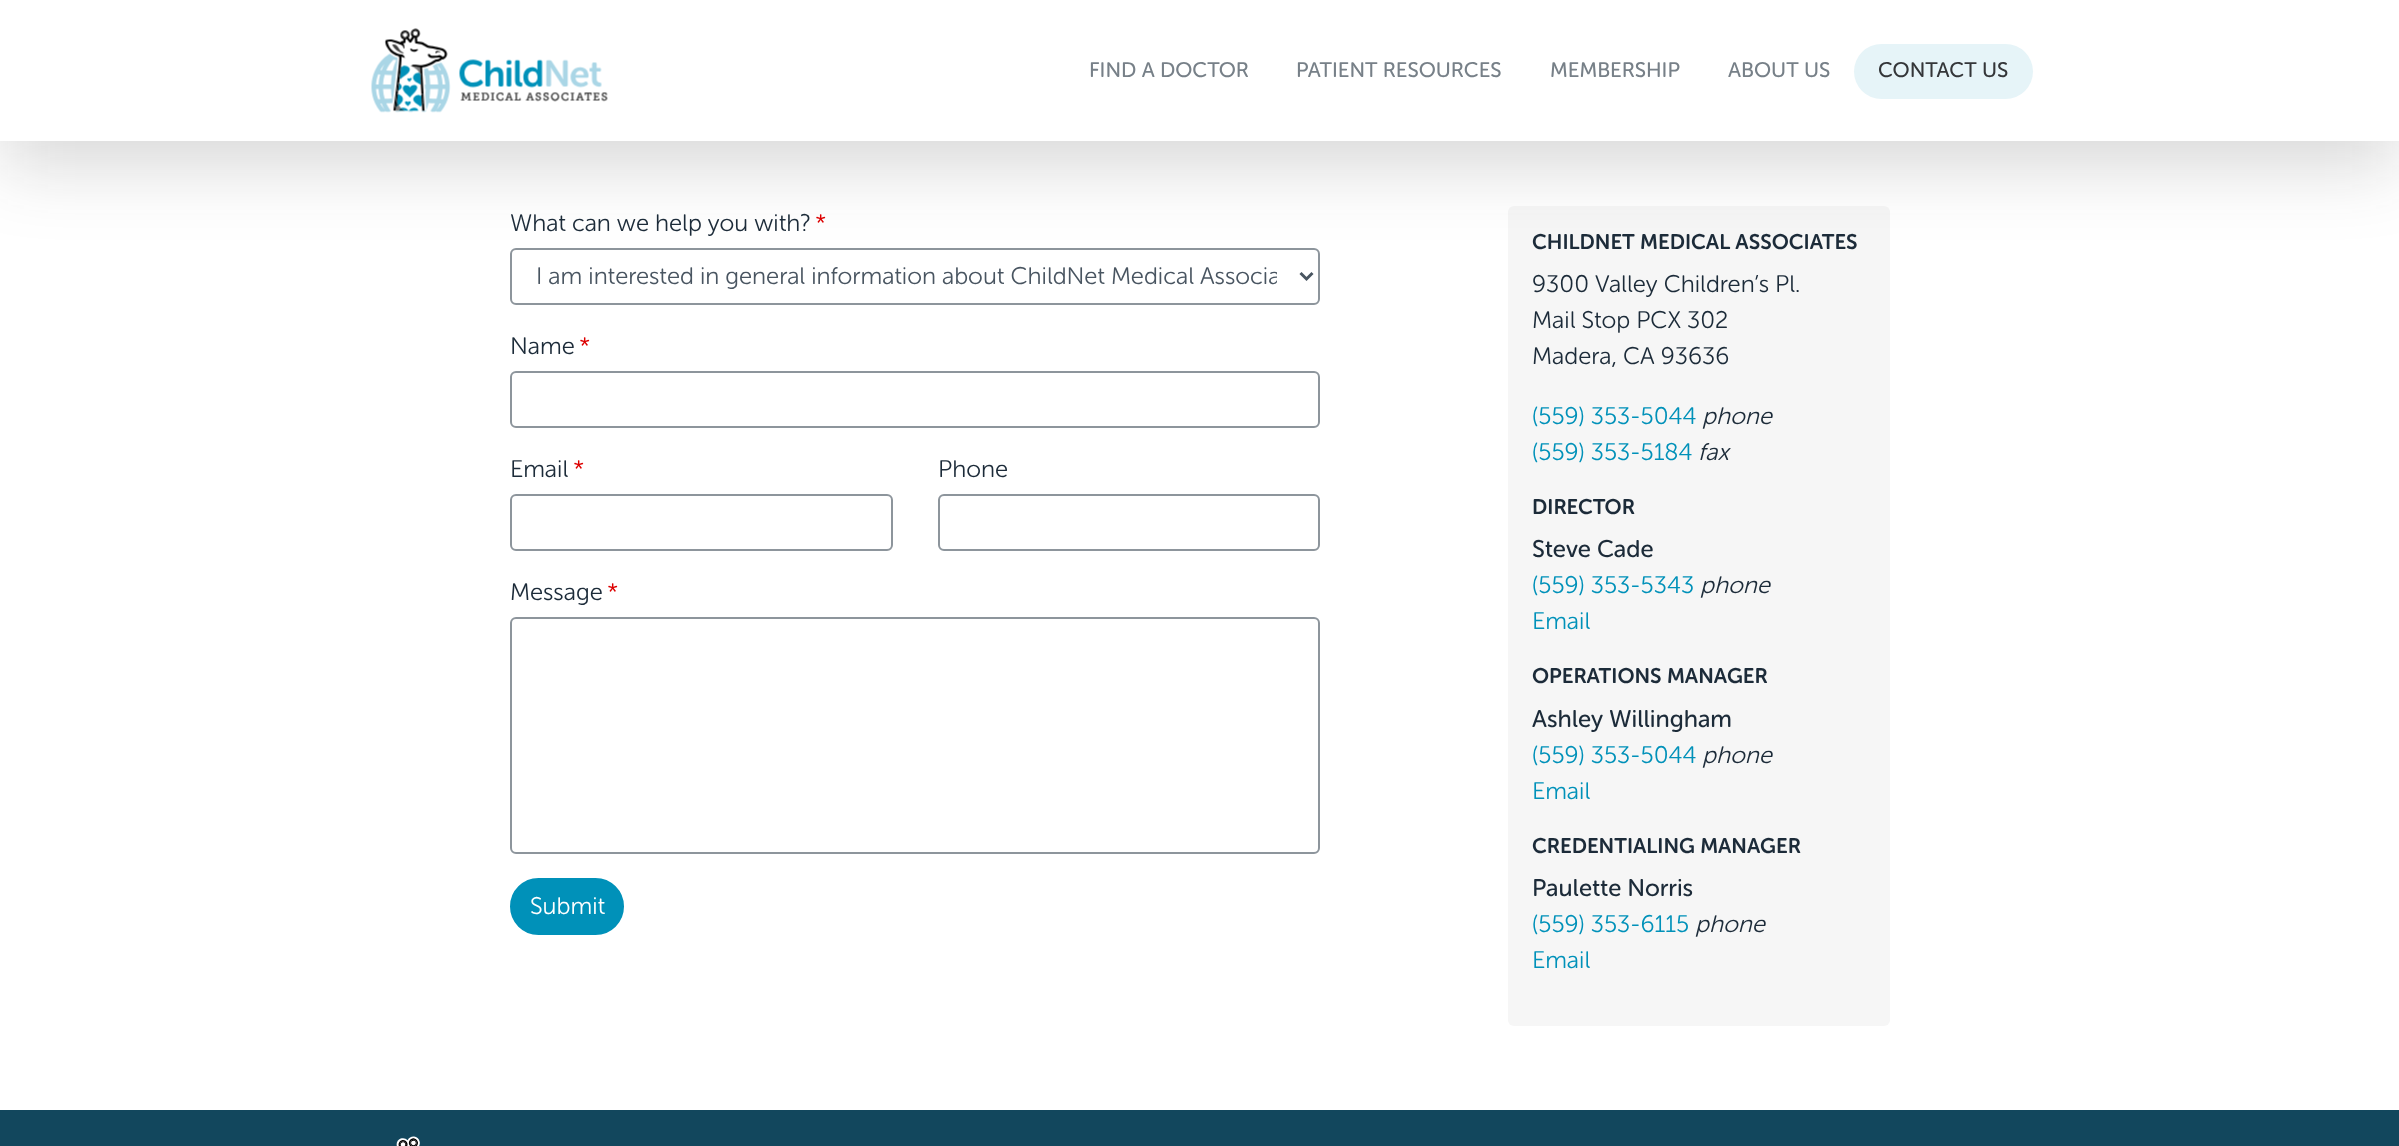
(async () => {
const canvas = document.querySelector("canvas")
canvas.width = 2399
canvas.height = 1146
const c = canvas.getContext("2d")
c.miterLimit = 4
c.fontKerning = "normal"
function T(s,x,y){c.fillText(s,x,y)}
function R(x,y,w,h){c.fillRect(x,y,w,h)}
function Q(x,y,w,h,r){c.beginPath();c.roundRect(x,y,w,h,r);c.fill()}
async function I(src,x,y,w,h){const img=new Image();img.src=src;await img.decode();c.drawImage(img,x,y,w,h)}
let path
c.fillStyle="#fff"
R(0,0,2399,1146)
c.beginPath()
c.roundRect(511,249,808,55,5)
c.strokeStyle="#8d959c"
c.lineWidth=2
c.stroke()
path = new Path2D("M1300.5 273l6 6l6-6")
c.strokeStyle="#495561"
c.lineWidth=3
c.stroke(path)
c.fillStyle="#f6f6f6"
Q(1508,206,382,820,6)
c.fillStyle="#2021242e"
c.filter="blur(36px)"
c.beginPath()
c.rect(0,24,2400,141)
c.fill()
c.filter="none"
c.fillStyle="#fff"
R(0,0,2399,141)
await I("1.png",371,28,237,85)
c.font="21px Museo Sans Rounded"
c.fillStyle="#778088"
T("FIND A DOCTOR",1089,77)
T("PATIENT RESOURCES",1296,77)
T("MEMBERSHIP",1550,77)
T("ABOUT US",1728,77)
c.fillStyle="#e6f4f8"
Q(1854,44,179,55,27.5)
c.fillStyle="#343639"
T("CONTACT US",1878,77)
c.font="300 24px Museo Sans Rounded"
c.fillStyle="#1c2b39"
T("What can we help you with?",510,231)
c.fillStyle="#d00"
T("*",815,231)
c.save()
c.beginPath()
c.rect(536,261,741,32)
c.clip()
c.fillStyle="#495561"
T("I am interested in general information about ChildNet Medical Associa",536,284)
c.restore()
c.fillStyle="#1c2b39"
T("Name",510,354)
c.fillStyle="#d00"
T("*",579,354)
c.beginPath()
c.roundRect(511,372,808,55,5)
c.strokeStyle="#8d959c"
c.lineWidth=2
c.stroke()
c.fillStyle="#1c2b39"
T("Email",510,477)
c.fillStyle="#d00"
T("*",573,477)
c.beginPath()
c.roundRect(511,495,381,55,5)
c.stroke()
c.fillStyle="#1c2b39"
T("Phone",938,477)
c.beginPath()
c.roundRect(939,495,380,55,5)
c.stroke()
T("Message",510,600)
c.fillStyle="#d00"
T("*",607,600)
c.beginPath()
c.roundRect(511,618,808,235,5)
c.stroke()
c.fillStyle="#0091b9"
c.beginPath()
c.roundRect(511,879,112,55,27.5)
c.fill()
c.strokeStyle="#0091b9"
c.stroke()
c.fillStyle="#fff"
T("Submit",530,914)
c.font="600 21px Museo Sans Rounded"
c.fillStyle="#1c2b39"
T("CHILDNET MEDICAL ASSOCIATES",1532,249)
c.font="300 24px Museo Sans Rounded"
T("9300 Valley Children’s Pl.",1532,292)
T("Mail Stop PCX 302",1532,328)
T("Madera, CA 93636",1532,364)
c.fillStyle="#0091b9"
T("(559) 353-5044",1532,424)
c.font="italic 300 24px Museo Sans Rounded"
c.fillStyle="#1c2b39"
T("phone",1702,424)
c.font="300 24px Museo Sans Rounded"
c.fillStyle="#0091b9"
T("(559) 353-5184",1532,460)
c.font="italic 300 24px Museo Sans Rounded"
c.fillStyle="#1c2b39"
T("fax",1698,460)
c.font="600 21px Museo Sans Rounded"
T("DIRECTOR",1532,514)
c.font="24px Museo Sans Rounded"
T("Steve Cade",1532,557)
c.font="300 24px Museo Sans Rounded"
c.fillStyle="#0091b9"
T("(559) 353-5343",1532,593)
c.font="italic 300 24px Museo Sans Rounded"
c.fillStyle="#1c2b39"
T("phone",1700,593)
c.font="300 24px Museo Sans Rounded"
c.fillStyle="#0091b9"
T("Email",1532,629)
c.font="600 21px Museo Sans Rounded"
c.fillStyle="#1c2b39"
T("OPERATIONS MANAGER",1532,683)
c.font="24px Museo Sans Rounded"
T("Ashley Willingham",1532,727)
c.font="300 24px Museo Sans Rounded"
c.fillStyle="#0091b9"
T("(559) 353-5044",1532,763)
c.font="italic 300 24px Museo Sans Rounded"
c.fillStyle="#1c2b39"
T("phone",1702,763)
c.font="300 24px Museo Sans Rounded"
c.fillStyle="#0091b9"
T("Email",1532,799)
c.font="600 21px Museo Sans Rounded"
c.fillStyle="#1c2b39"
T("CREDENTIALING MANAGER",1532,853)
c.font="24px Museo Sans Rounded"
T("Paulette Norris",1532,896)
c.font="300 24px Museo Sans Rounded"
c.fillStyle="#0091b9"
T("(559) 353-6115",1532,932)
c.font="italic 300 24px Museo Sans Rounded"
c.fillStyle="#1c2b39"
T("phone",1695,932)
c.font="300 24px Museo Sans Rounded"
c.fillStyle="#0091b9"
T("Email",1532,968)
c.fillStyle="#12475d"
R(0,1110,2399,36)
await I("2.png",396,1136,24,10)
})()
